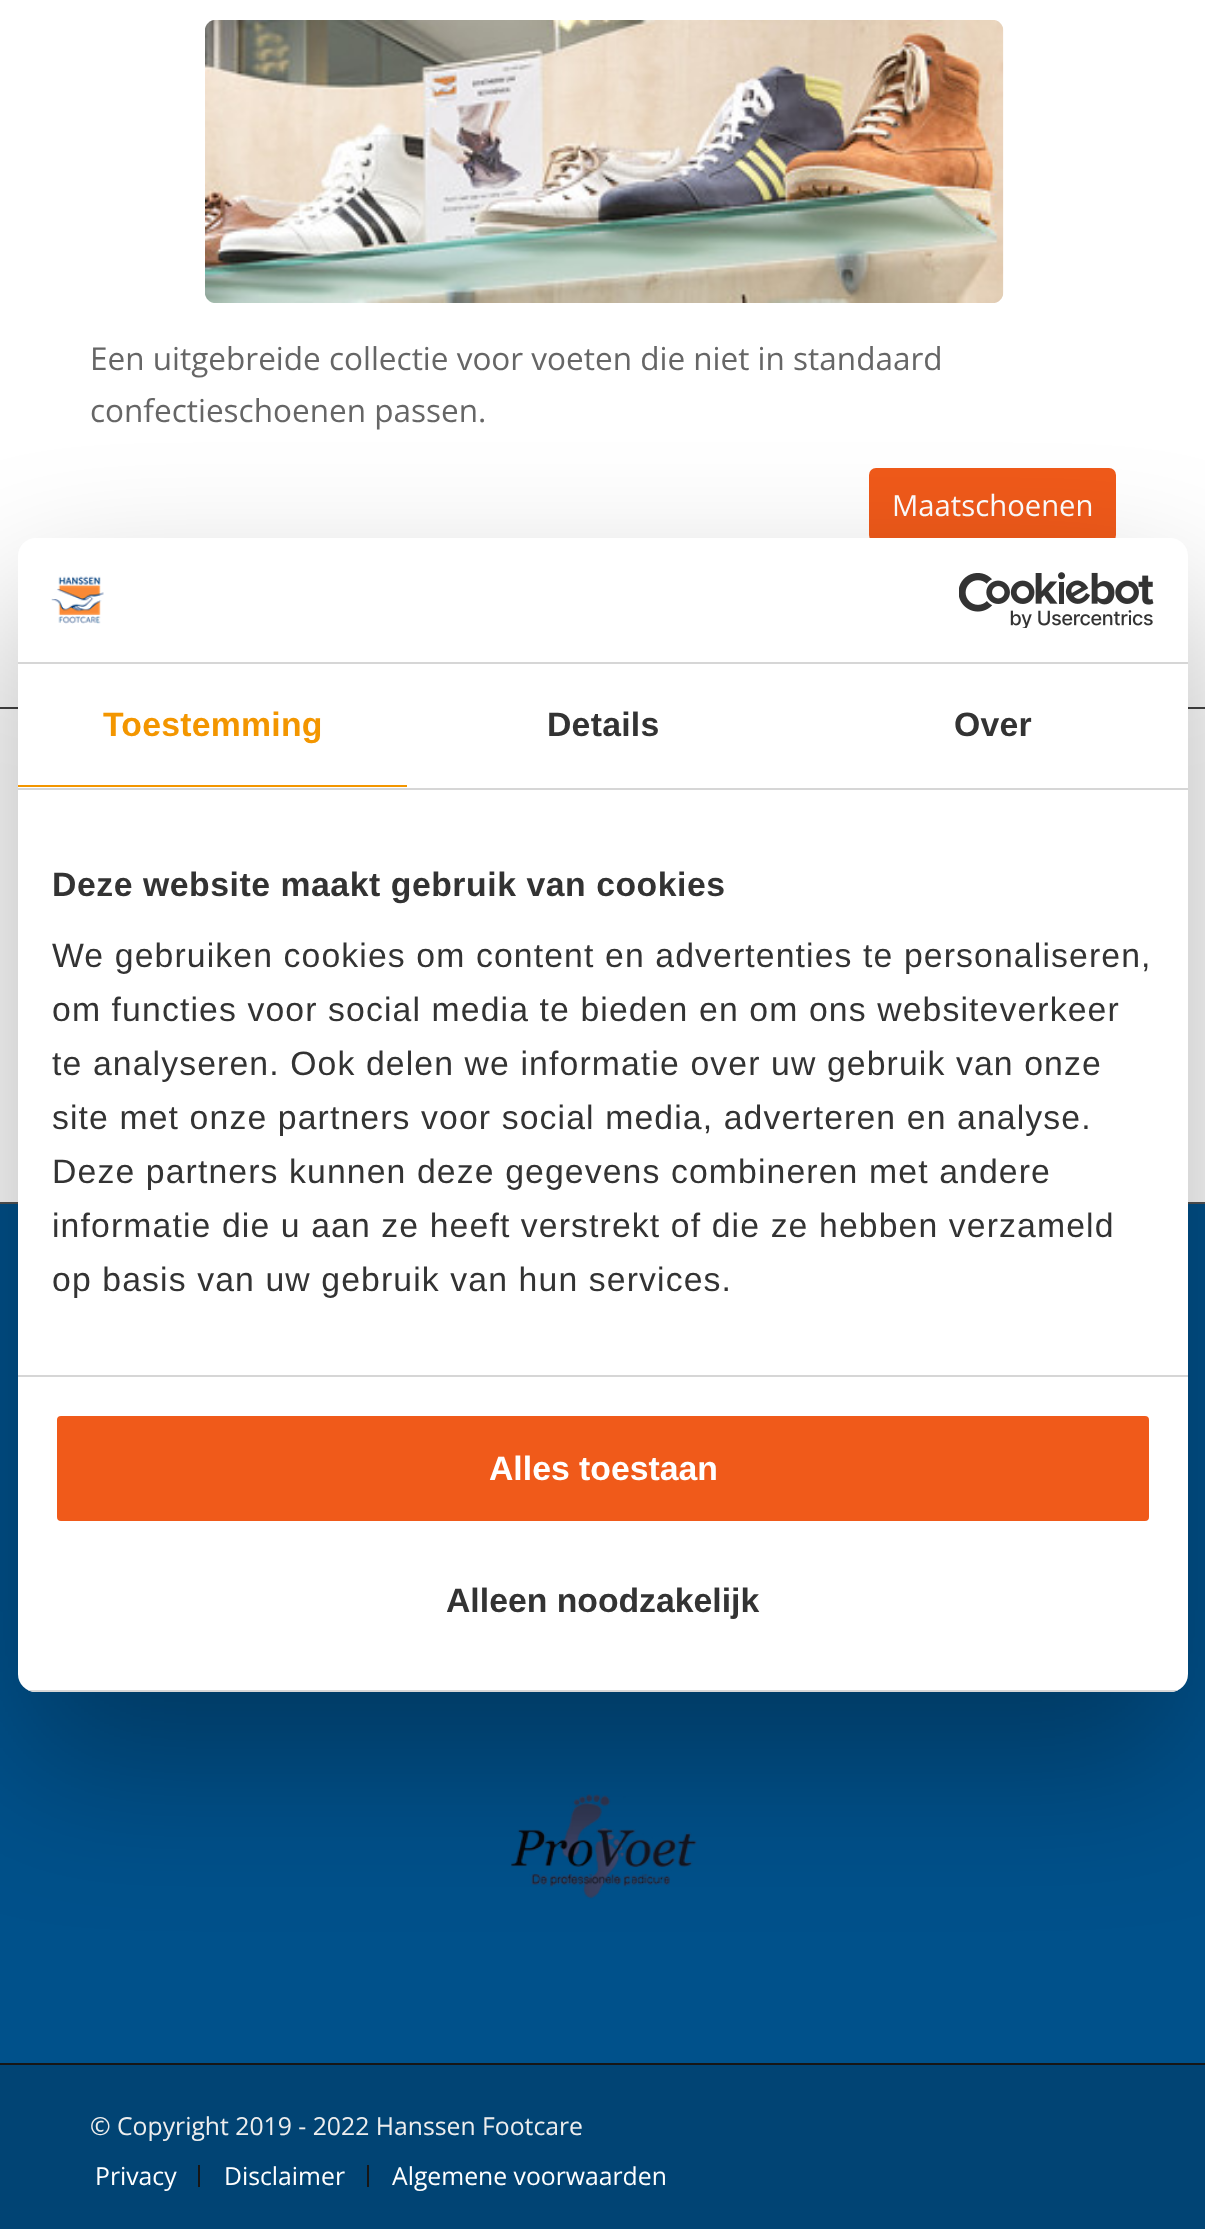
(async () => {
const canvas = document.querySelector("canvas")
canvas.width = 1205
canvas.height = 2229
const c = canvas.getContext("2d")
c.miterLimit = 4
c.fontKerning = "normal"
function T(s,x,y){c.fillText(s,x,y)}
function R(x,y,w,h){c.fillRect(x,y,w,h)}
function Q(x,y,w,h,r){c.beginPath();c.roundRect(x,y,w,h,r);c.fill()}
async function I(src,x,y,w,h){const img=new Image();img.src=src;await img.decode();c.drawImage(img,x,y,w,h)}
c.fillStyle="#fff"
R(0,0,1205,2229)
await I("1.png",205,20,799,283)
c.font="31.5px Open Sans"
c.fillStyle="#666"
T("Een uitgebreide collectie voor voeten die niet in standaard",90,370)
T("confectieschoenen passen.",90,422)
c.fillStyle="#f05a1a"
Q(869,468,247,74,7)
c.font="29.25px Open Sans"
c.fillStyle="#fff"
T("Maatschoenen",892,516)
c.fillStyle="#444"
R(0,707,1205,2)
c.fillStyle="#00518b"
R(0,1204,1205,859)
c.fillStyle="#555"
R(0,1202,1205,2)
await I("2.png",511,1794,186,105)
c.fillStyle="#014474"
R(0,2065,1205,164)
c.fillStyle="#161616"
R(0,2063,1205,2)
c.font="24.75px Open Sans"
c.fillStyle="#eee"
T("© Copyright 2019 - 2022 Hanssen Footcare",90,2135)
c.fillStyle="#fff"
T("Privacy",95,2185)
c.fillStyle="#161616"
R(198,2165,2,22)
c.fillStyle="#fff"
T("Disclaimer",224,2185)
c.fillStyle="#161616"
R(367,2165,2,22)
c.fillStyle="#fff"
T("Algemene voorwaarden",392,2185)
c.fillStyle="#0000004d"
c.filter="blur(76.5px)"
c.beginPath()
c.roundRect(18,610,1170,1154,18)
c.fill()
c.filter="none"
c.fillStyle="#fff"
Q(18,538,1170,1154,18)
c.fillStyle="#d6d6d6"
R(18,662,1170,2)
await I("3.png",51,576,53,48)
await I("4.png",959,572,195,56)
R(18,788,1170,2)
c.fillStyle="#f39600"
R(18,785,389,2)
c.letterSpacing="0.25px"
c.font="bold 33.75px Liberation Sans"
T("Toestemming",103,736)
c.fillStyle="#333"
T("Details",547,736)
T("Over",954,736)
c.fillStyle="#d6d6d6"
R(18,1375,1170,2)
c.letterSpacing="0.55px"
c.fillStyle="#333"
T("Deze website maakt gebruik van cookies",52,896)
c.letterSpacing="1.12px"
c.font="33.75px Liberation Sans"
T("We gebruiken cookies om content en advertenties te personaliseren,",52,967)
T("om functies voor social media te bieden en om ons websiteverkeer",52,1021)
T("te analyseren. Ook delen we informatie over uw gebruik van onze",52,1075)
T("site met onze partners voor social media, adverteren en analyse.",52,1129)
T("Deze partners kunnen deze gegevens combineren met andere",52,1183)
T("informatie die u aan ze heeft verstrekt of die ze hebben verzameld",52,1237)
T("op basis van uw gebruik van hun services.",52,1291)
c.save()
c.beginPath()
c.roundRect(18,538,1170,1154,18)
c.clip()
c.fillStyle="#d6d6d6"
R(28,1690,1150,2)
c.restore()
c.fillStyle="#f05a1a"
c.beginPath()
c.roundRect(54.5,1413.5,1097,110,6.5)
c.fill()
c.strokeStyle="#fff"
c.lineWidth=5
c.stroke()
c.letterSpacing="0px"
c.font="bold 33.75px Liberation Sans"
c.fillStyle="#fff"
T("Alles toestaan",489,1480)
c.fillStyle="#333"
T("Alleen noodzakelijk",446,1612)
})()
